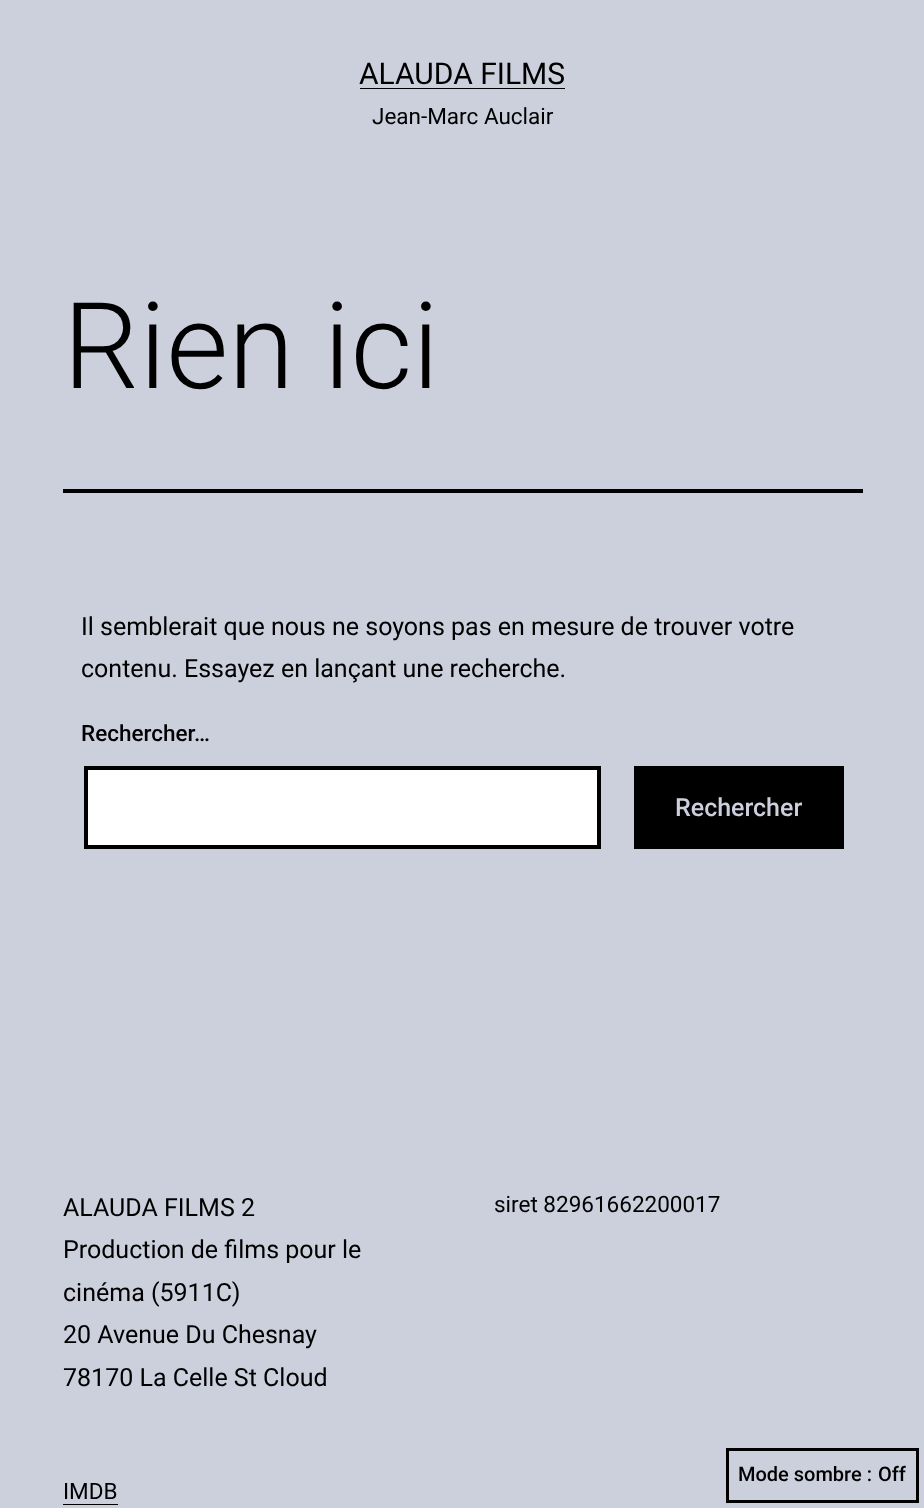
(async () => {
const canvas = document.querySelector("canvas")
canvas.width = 924
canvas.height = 1508
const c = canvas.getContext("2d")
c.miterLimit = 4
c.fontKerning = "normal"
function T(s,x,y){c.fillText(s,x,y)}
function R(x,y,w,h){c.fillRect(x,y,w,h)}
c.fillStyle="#ccd0dd"
R(0,0,924,1508)
c.font="30px Roboto"
c.fillStyle="#000"
T("ALAUDA FILMS",359,84)
R(360,88,205,1)
c.font="22.5px Roboto"
T("Jean-Marc Auclair",372,124)
R(63,489,800,4)
c.font="300 120px Roboto"
T("Rien ici",63,388)
c.font="25px Roboto"
T("Il semblerait que nous ne soyons pas en mesure de trouver votre",81,635)
T("contenu. Essayez en lançant une recherche.",81,677)
c.font="500 22.5px Roboto"
T("Rechercher…",81,741)
c.fillStyle="#fff"
c.beginPath()
c.rect(86,768,513,79)
c.fill()
c.strokeStyle="#000"
c.lineWidth=4
c.stroke()
c.fillStyle="#000"
R(634,766,210,83)
c.font="500 25px Roboto"
c.fillStyle="#ccd0dd"
T("Rechercher",675,816)
c.font="25px Roboto"
c.fillStyle="#000"
T("ALAUDA FILMS 2",63,1216)
T("Production de films pour le",63,1258)
T("cinéma (5911C)",63,1301)
T("20 Avenue Du Chesnay",63,1343)
T("78170 La Celle St Cloud",63,1386)
c.font="22.5px Roboto"
T("siret 82961662200017",494,1212)
T("IMDB",63,1499)
R(63,1504,55,1)
c.lineWidth=3
c.strokeRect(727.5,1449.5,190,52)
c.font="500 20px Roboto"
T("Mode sombre :",738,1481)
T("Off",878,1481)
})()
